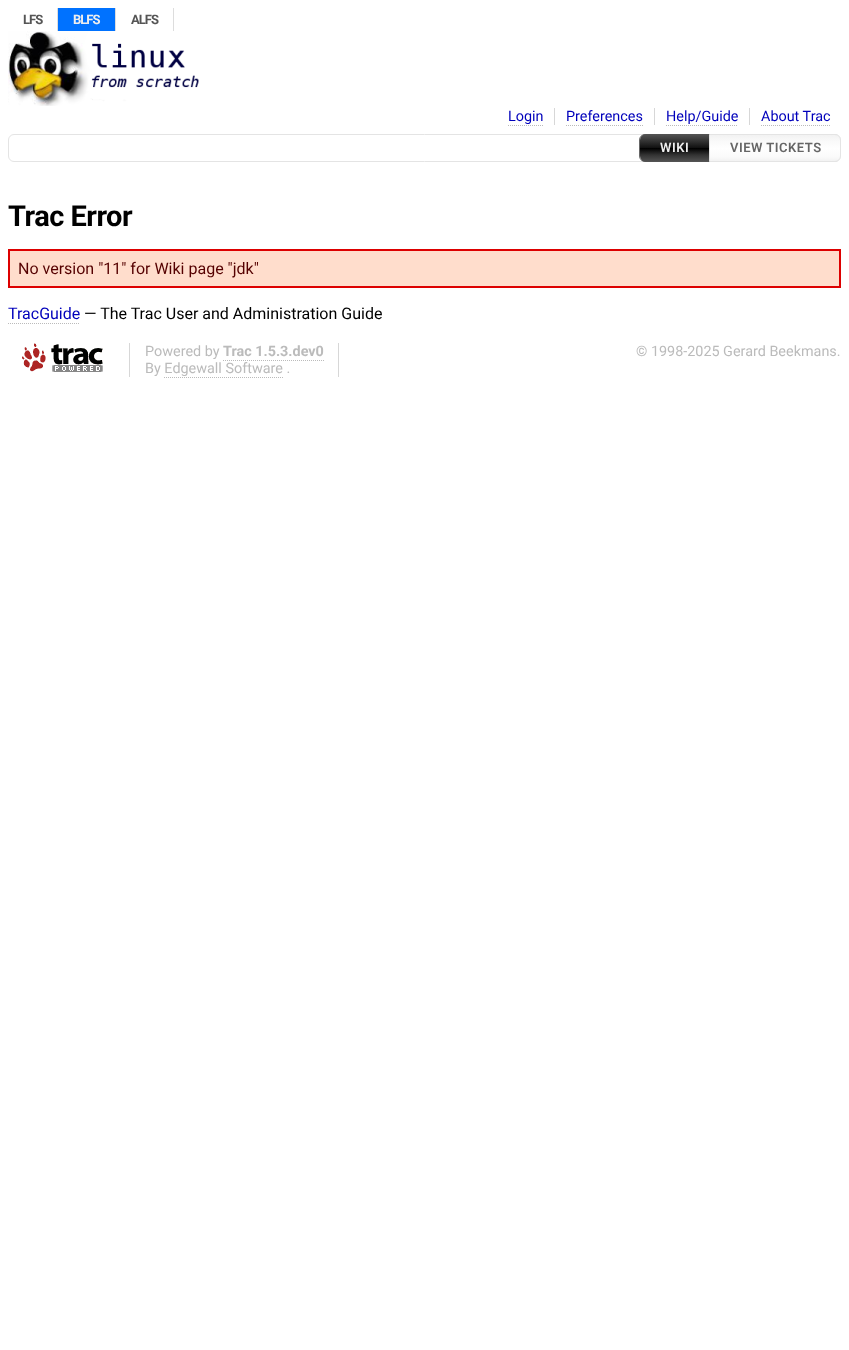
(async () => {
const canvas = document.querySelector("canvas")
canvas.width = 849
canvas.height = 1350
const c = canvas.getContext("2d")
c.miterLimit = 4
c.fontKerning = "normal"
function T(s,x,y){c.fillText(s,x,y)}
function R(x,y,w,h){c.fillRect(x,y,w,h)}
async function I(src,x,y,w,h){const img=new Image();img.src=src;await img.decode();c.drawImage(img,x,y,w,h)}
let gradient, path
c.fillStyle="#fff"
R(0,0,849,1350)
c.fillStyle="#ddd"
R(57,8,1,23)
c.letterSpacing="-1px"
c.font="bold 13px Roboto"
c.fillStyle="#555"
T("LFS",23,24)
c.fillStyle="#0072ff"
R(58,8,57,23)
c.fillStyle="#ddd"
R(115,8,1,23)
c.fillStyle="#eee"
T("BLFS",73,24)
c.fillStyle="#ddd"
R(173,8,1,23)
c.fillStyle="#555"
T("ALFS",131,24)
await I("1.png",8,31,191,75)
c.fillStyle="#d7d7d7"
R(554,108,1,17)
c.letterSpacing="0px"
c.font="14.4px Roboto"
c.fillStyle="#00b"
T("Login",508,121)
path = new Path2D("M508 125.5h36")
c.strokeStyle="#bbb"
c.setLineDash([1,1])
c.stroke(path)
c.fillStyle="#d7d7d7"
R(654,108,1,17)
c.fillStyle="#00b"
T("Preferences",566,121)
path = new Path2D("M566 125.5h77")
c.stroke(path)
c.fillStyle="#d7d7d7"
R(749,108,1,17)
c.fillStyle="#00b"
T("Help/Guide",666,121)
path = new Path2D("M666 125.5h72")
c.stroke(path)
T("About Trac",761,121)
path = new Path2D("M761 125.5h69")
c.stroke(path)
c.beginPath()
c.roundRect(8.5,134.5,832,27,5.5)
c.strokeStyle="#e4e4e4"
c.setLineDash([])
c.stroke()
c.beginPath()
c.roundRect(639.5,134.5,70,27,[5.5,0,0,5.5])
c.strokeStyle="#666"
c.stroke()
gradient = c.createLinearGradient(675,134,675,162)
gradient.addColorStop(0,"#555")
gradient.addColorStop(.25,"#333")
gradient.addColorStop(.49,"#111")
gradient.addColorStop(.51,"#000")
gradient.addColorStop(.75,"#333")
gradient.addColorStop(1,"#555")
c.fillStyle = gradient
c.beginPath()
c.roundRect(640,134,69,28,[6,0,0,6])
c.fill()
c.letterSpacing="0.5px"
c.font="600 13px Roboto"
c.fillStyle="#eee"
T("WIKI",660,152)
c.save()
c.beginPath()
c.roundRect(709,134,132,28,[0,6,6,0])
c.clip()
gradient = c.createLinearGradient(775,135,775,161)
gradient.addColorStop(0,"#f2f2f2")
gradient.addColorStop(.25,"#fafafa")
gradient.addColorStop(.49,"#fefefe")
gradient.addColorStop(.51,"#fff")
gradient.addColorStop(.85,"#fafafa")
gradient.addColorStop(1,"#f2f2f2")
c.fillStyle = gradient
R(710,135,131,26)
c.restore()
c.beginPath()
c.roundRect(709.5,134.5,131,27,[0,5.5,5.5,0])
c.strokeStyle="#e4e4e4"
c.stroke()
c.fillStyle="#666"
T("VIEW TICKETS",730,152)
c.letterSpacing="-0.5px"
c.font="bold 29px Roboto"
c.fillStyle="#000"
T("Trac Error",8,226)
c.fillStyle="#fdc"
c.beginPath()
c.rect(9,250,831,37)
c.fill()
c.strokeStyle="#d00"
c.lineWidth=2
c.stroke()
c.letterSpacing="0px"
c.font="16px Roboto"
c.fillStyle="#500"
T("No version \"11\" for Wiki page \"jdk\"",18,274)
c.fillStyle="#00b"
T("TracGuide",8,319)
path = new Path2D("M8 323.5h72")
c.strokeStyle="#bbb"
c.lineWidth=1
c.setLineDash([1,1])
c.stroke(path)
c.fillStyle="#000"
T("— The Trac User and Administration Guide",84,319)
await I("2.png",22,343,81,29)
c.fillStyle="#d7d7d7"
R(338,343,1,34)
R(129,343,1,34)
c.font="14.4px Roboto"
c.fillStyle="#bbb"
T("Powered by",145,356)
c.font="bold 14.4px Roboto"
T("Trac 1.5.3.dev0",223,356)
path = new Path2D("M223 360.5h101")
c.stroke(path)
c.font="14.4px Roboto"
T("By Edgewall Software .",145,373)
path = new Path2D("M164 377.5h119")
c.stroke(path)
T("© 1998-2025 Gerard Beekmans.",636,356)
})()
